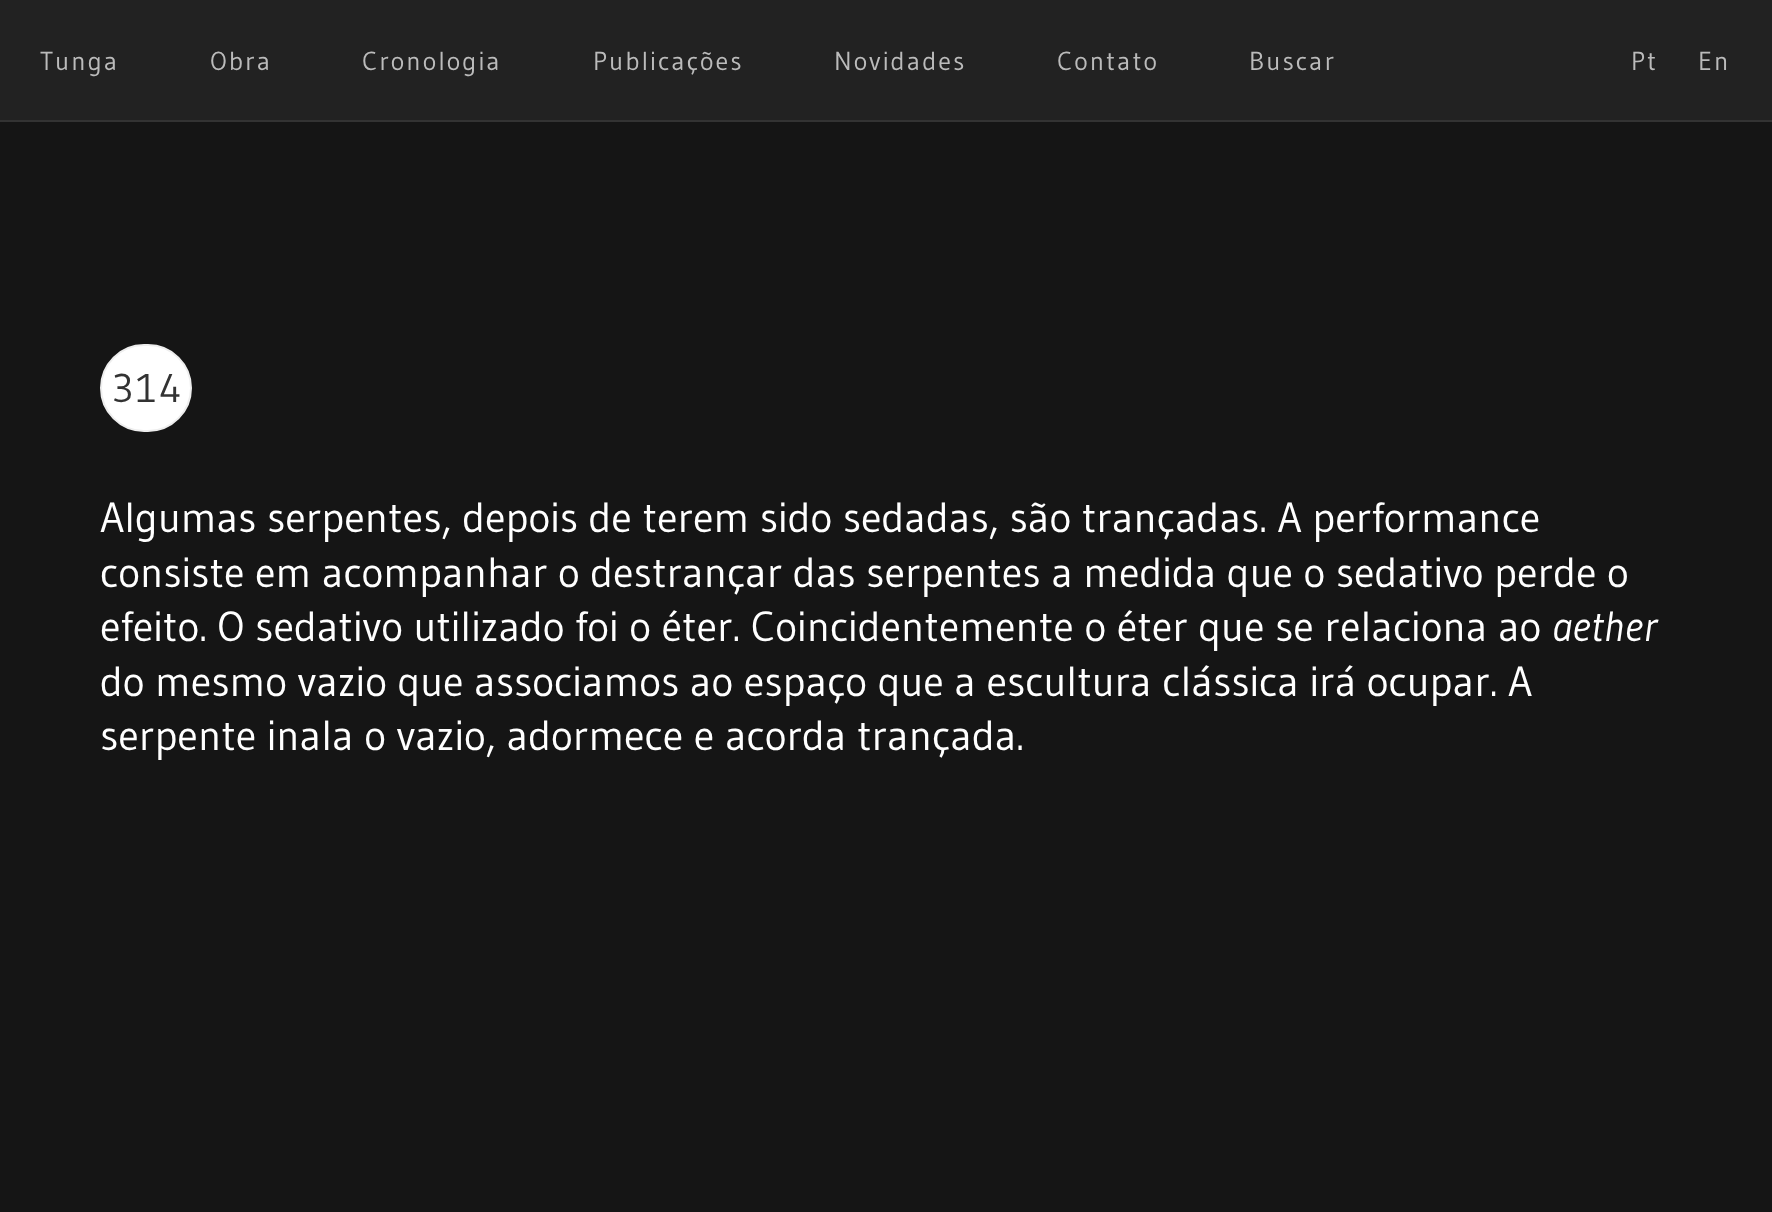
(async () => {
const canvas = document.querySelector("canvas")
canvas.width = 1772
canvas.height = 1212
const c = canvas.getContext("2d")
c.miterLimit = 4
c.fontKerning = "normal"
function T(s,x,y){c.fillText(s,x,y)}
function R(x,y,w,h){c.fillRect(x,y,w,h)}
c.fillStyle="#151515"
R(0,0,1772,1212)
c.fillStyle="#222"
R(0,0,1772,120)
c.fillStyle="#333"
R(0,120,1772,2)
c.letterSpacing="2px"
c.font="26px Gudea"
c.fillStyle="#bbb"
T("Tunga",40,70)
T("Obra",210,70)
T("Cronologia",362,70)
T("Publicações",593,70)
T("Novidades",834,70)
T("Contato",1057,70)
T("Buscar",1249,70)
T("Pt",1631,70)
T("En",1698,70)
c.fillStyle="#fff"
c.beginPath()
c.roundRect(101,345,90,86,43)
c.fill()
c.strokeStyle="#eee"
c.lineWidth=2
c.stroke()
c.letterSpacing="3px"
c.font="40px Gudea"
c.fillStyle="#333"
T("314",112,402)
c.letterSpacing="0px"
c.font="42px Gudea"
c.fillStyle="#fff"
T("Algumas serpentes, depois de terem sido sedadas, são trançadas. A performance",100,532)
T("consiste em acompanhar o destrançar das serpentes a medida que o sedativo perde o",100,587)
T("efeito. O sedativo utilizado foi o éter. Coincidentemente o éter que se relaciona ao",100,641)
c.font="italic 42px Gudea"
T("aether",1552,641)
c.font="42px Gudea"
T("do mesmo vazio que associamos ao espaço que a escultura clássica irá ocupar. A",100,696)
T("serpente inala o vazio, adormece e acorda trançada.",100,750)
})()
